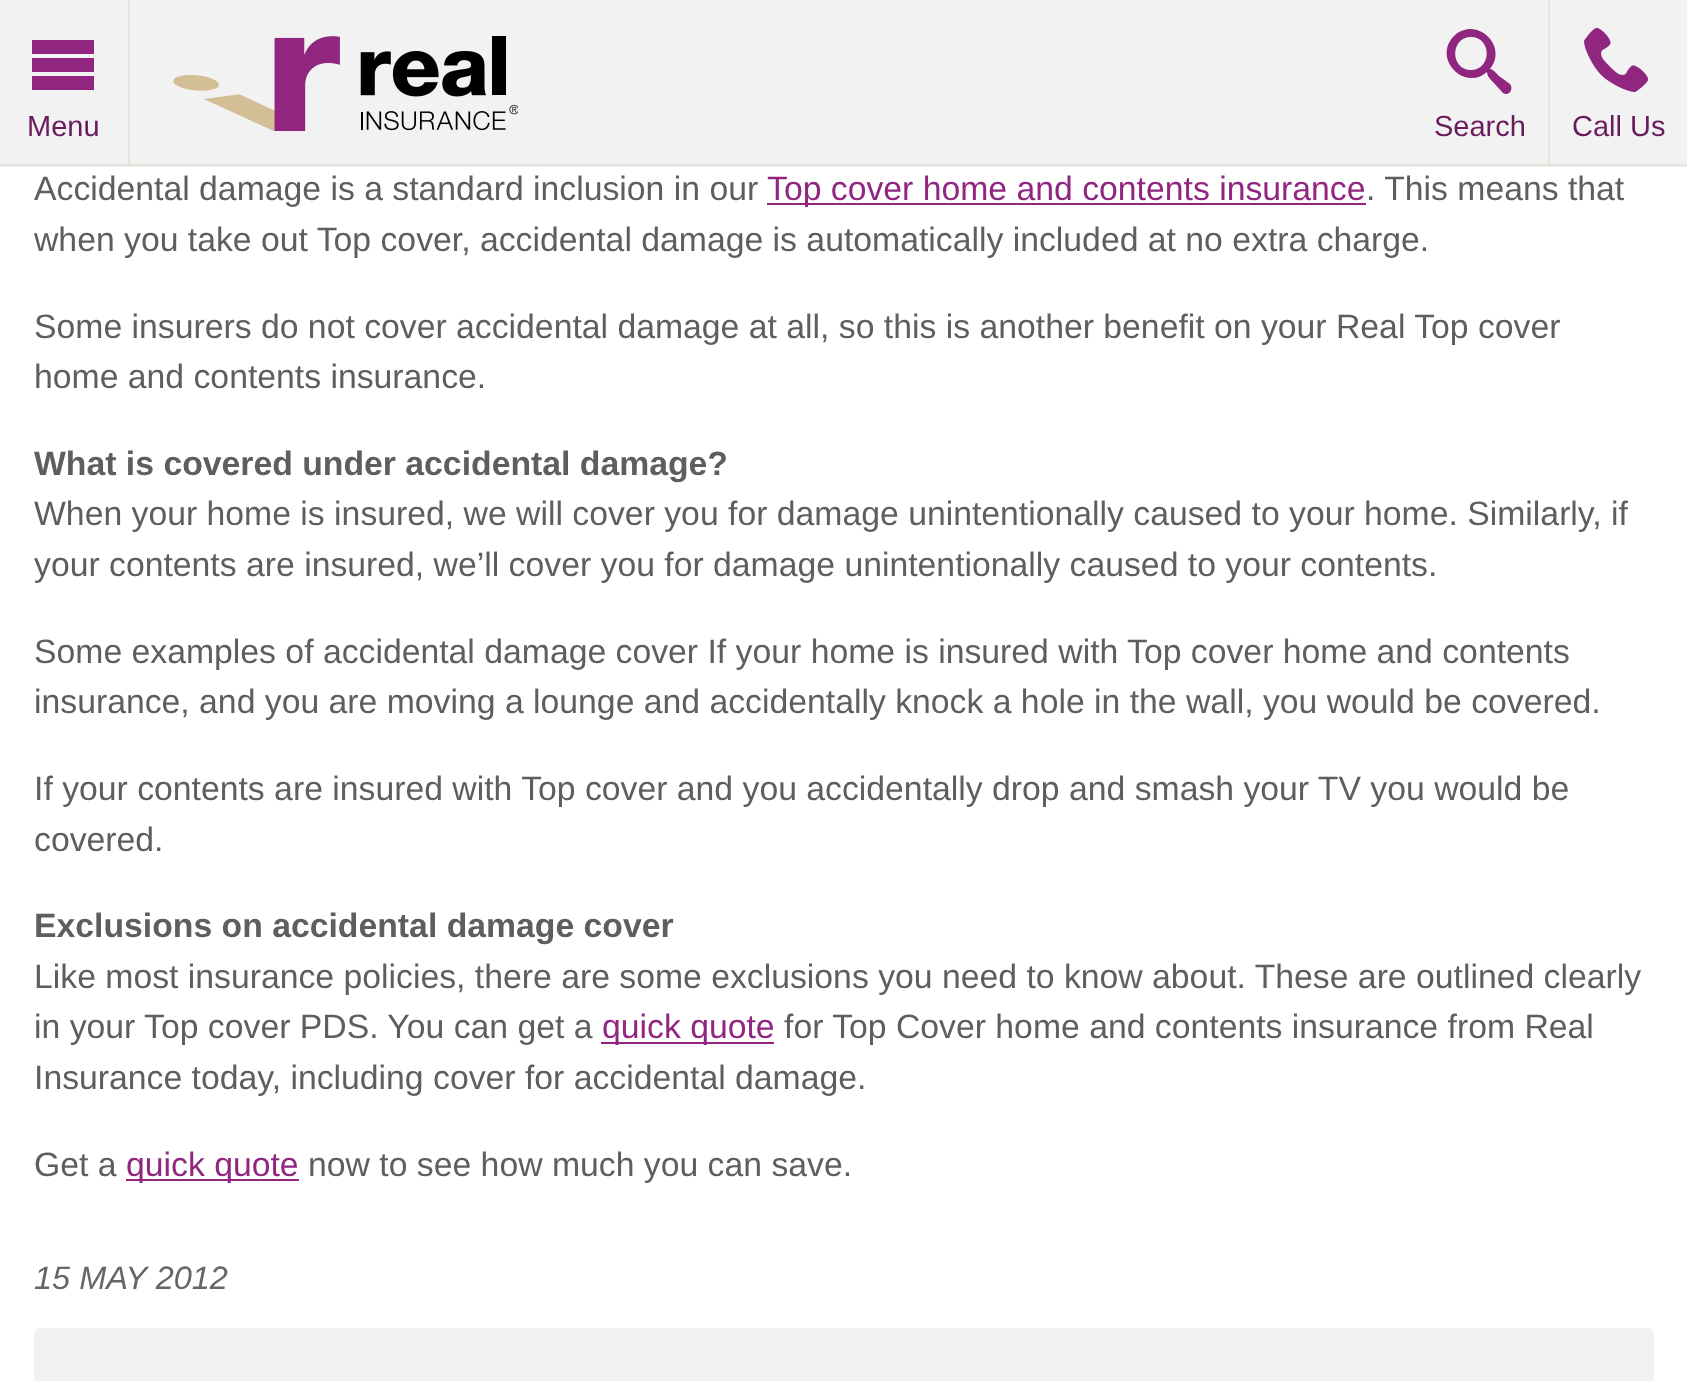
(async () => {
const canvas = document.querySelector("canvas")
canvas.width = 1687
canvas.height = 1381
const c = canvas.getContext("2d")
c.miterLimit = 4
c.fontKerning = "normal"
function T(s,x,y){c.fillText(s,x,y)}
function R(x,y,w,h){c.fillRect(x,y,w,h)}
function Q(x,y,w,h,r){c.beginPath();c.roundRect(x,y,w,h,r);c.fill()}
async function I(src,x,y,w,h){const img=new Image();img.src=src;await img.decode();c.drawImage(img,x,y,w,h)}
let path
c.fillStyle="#fff"
R(0,0,1687,1381)
c.fillStyle="#f2f2f2"
R(0,0,1687,167)
c.fillStyle="#e4e4dd"
R(0,164,1687,2)
R(128,0,2,167)
c.fillStyle="#912680"
path = new Path2D("M32 40h62v14h-62zm0 18h62v14h-62zm0 18h62v14h-62z")
c.fill(path)
c.font="29px Liberation Sans"
c.fillStyle="#691b5c"
T("Menu",27,136)
await I("1.png",173,36,345,95)
c.fillStyle="#912680"
path = new Path2D("M1510 84l-11-8c-2-2-6-7-9-7c19-23-14-54-36-33c-22 22 10 56 33 36c0 4 4 8 6 10l10 11c6 4 11-4 7-9zm-39-14c-21 0-21-33 0-33c21 0 21 33 0 33z")
c.fill(path)
c.fillStyle="#691b5c"
T("Search",1434,136)
c.fillStyle="#e4e4dd"
R(1548,0,2,167)
await I("2.png",1584,27,65,65)
c.fillStyle="#691b5c"
T("Call Us",1572,136)
c.font="33.75px Liberation Sans"
c.fillStyle="#5e5e5e"
T("Accidental damage is a standard inclusion in our",34,200)
c.fillStyle="#912680"
R(767,203,599,2)
T("Top cover home and contents insurance",767,200)
c.fillStyle="#5e5e5e"
T(". This means that",1366,200)
T("when you take out Top cover, accidental damage is automatically included at no extra charge.",34,251)
T("Some insurers do not cover accidental damage at all, so this is another benefit on your Real Top cover",34,338)
T("home and contents insurance.",34,388)
c.font="bold 33.75px Liberation Sans"
T("What is covered under accidental damage?",34,475)
c.font="33.75px Liberation Sans"
T("When your home is insured, we will cover you for damage unintentionally caused to your home. Similarly, if",34,525)
T("your contents are insured, we’ll cover you for damage unintentionally caused to your contents.",34,576)
T("Some examples of accidental damage cover If your home is insured with Top cover home and contents",34,663)
T("insurance, and you are moving a lounge and accidentally knock a hole in the wall, you would be covered.",34,713)
T("If your contents are insured with Top cover and you accidentally drop and smash your TV you would be",34,800)
T("covered.",34,851)
c.font="bold 33.75px Liberation Sans"
T("Exclusions on accidental damage cover",34,937)
c.font="33.75px Liberation Sans"
T("Like most insurance policies, there are some exclusions you need to know about. These are outlined clearly",34,988)
T("in your Top cover PDS. You can get a",34,1038)
c.fillStyle="#912680"
R(601,1042,173,2)
T("quick quote",602,1038)
c.fillStyle="#5e5e5e"
T("for Top Cover home and contents insurance from Real",784,1038)
T("Insurance today, including cover for accidental damage.",34,1089)
T("Get a",34,1176)
c.fillStyle="#912680"
R(126,1179,173,2)
T("quick quote",126,1176)
c.fillStyle="#5e5e5e"
T("now to see how much you can save.",308,1176)
c.font="italic 32.5px Liberation Sans"
c.fillStyle="#666"
T("15 MAY 2012",34,1289)
c.fillStyle="#f2f2f2"
Q(34,1328,1620,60,7)
})()
